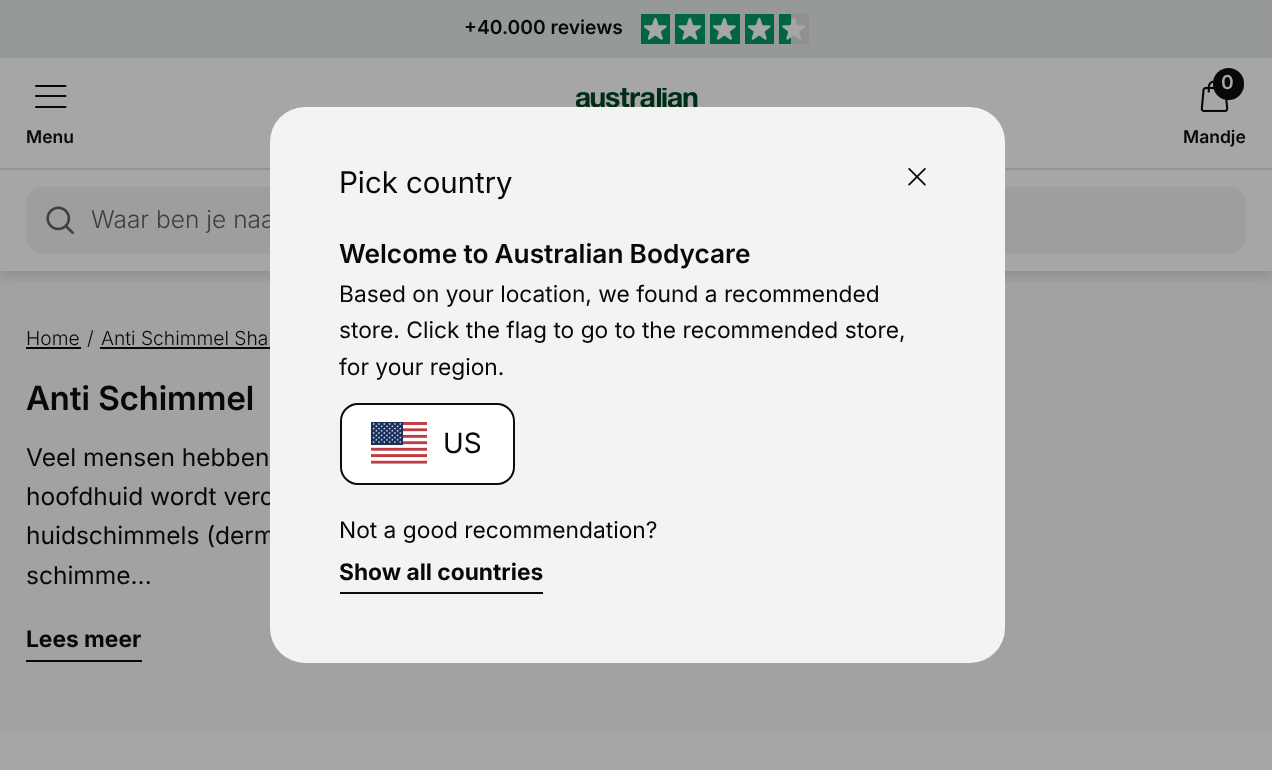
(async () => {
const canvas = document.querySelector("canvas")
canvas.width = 1272
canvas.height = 770
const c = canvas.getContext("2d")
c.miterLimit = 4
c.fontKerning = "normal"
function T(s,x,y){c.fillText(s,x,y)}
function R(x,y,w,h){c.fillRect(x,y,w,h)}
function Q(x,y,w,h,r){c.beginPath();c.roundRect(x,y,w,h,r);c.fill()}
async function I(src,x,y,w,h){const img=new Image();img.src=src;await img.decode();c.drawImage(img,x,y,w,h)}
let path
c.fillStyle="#a6a6a6"
R(0,0,1272,770)
c.fillStyle="#959a97"
R(0,0,1272,58)
c.font="600 19.25px 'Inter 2'"
c.fillStyle="#080808"
T("+40.000 reviews",464,34)
await I("1.png",641,14,150,30)
await I("2.png",791,14,18,30)
c.fillStyle="#a1a3a3"
R(0,271,1272,461)
c.save()
c.beginPath()
c.rect(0,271,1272,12)
c.clip()
c.fillStyle="#00000026"
c.filter="blur(7px)"
c.beginPath()
c.rect(0,172,1272,103)
c.fill()
c.filter="none"
c.restore()
c.fillStyle="#a6a6a6"
R(0,163,1272,5)
await I("3.png",576,88,122,19)
await I("4.png",1200,80,29,32)
c.fillStyle="#080808"
Q(1213,68,31,32,15.5)
c.fillStyle="#a6a6a6"
T("0",1221,89)
c.font="600 17.5px 'Inter 2'"
c.fillStyle="#080808"
T("Mandje",1183,143)
path = new Path2D("M36 86h29.5m-29.5 10h29.5m-29.5 11h29.5")
c.strokeStyle="#080808"
c.lineWidth=2.1
c.lineCap="round"
c.stroke(path)
T("Menu",26,143)
c.fillStyle="#949494"
R(0,168,1272,2)
c.fillStyle="#9e9e9e"
Q(26,187,1220,67,18)
await I("5.png",46,206,28,28)
c.font="300 24.5px Inter"
c.fillStyle="#3f3f3f"
T("Waar ben je naa",91,228)
c.font="24.5px Inter"
c.fillStyle="#080808"
T("hoofdhuid wordt vero",26,505)
T("huidschimmels (derm",26,544)
c.fillStyle="#f3f3f3"
Q(270,107,735,556,35)
c.font="29.75px 'Inter 2'"
c.fillStyle="#080808"
T("Pick country",339,193)
await I("6.png",908,168,18,18)
c.wordSpacing="-0.5px"
c.font="600 26.25px 'Inter 2'"
T("Welcome to Australian Bodycare",339,263)
c.wordSpacing="0px"
c.font="22.75px Inter"
T("Based on your location, we found a recommended",339,302)
T("store. Click the flag to go to the recommended store,",339,338)
T("for your region.",339,375)
c.fillStyle="#fff"
c.beginPath()
c.roundRect(341,404,173,80,17)
c.fill()
c.strokeStyle="#0c0c0c"
c.lineWidth=2
c.stroke()
await I("7.png",371,422,56,42)
c.font="28px 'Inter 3'"
c.fillStyle="#080808"
T("US",443,453)
c.font="22.75px Inter"
T("Not a good recommendation?",339,538)
c.fillStyle="#0c0c0c"
R(340,592,203,2)
c.font="bold 22.75px Inter"
c.fillStyle="#080808"
T("Show all countries",339,580)
c.font="300 19.25px Inter"
T("Home",26,345)
R(26,347,55,2)
T("/",87,345)
T("Anti Schimmel Sha",101,345)
R(100,347,170,2)
c.font="600 33.25px Inter"
T("Anti Schimmel",26,410)
c.font="24.5px Inter"
T("Veel mensen hebben",26,466)
T("schimme...",26,584)
R(26,660,116,2)
c.font="bold 22.75px Inter"
T("Lees meer",26,647)
})()
